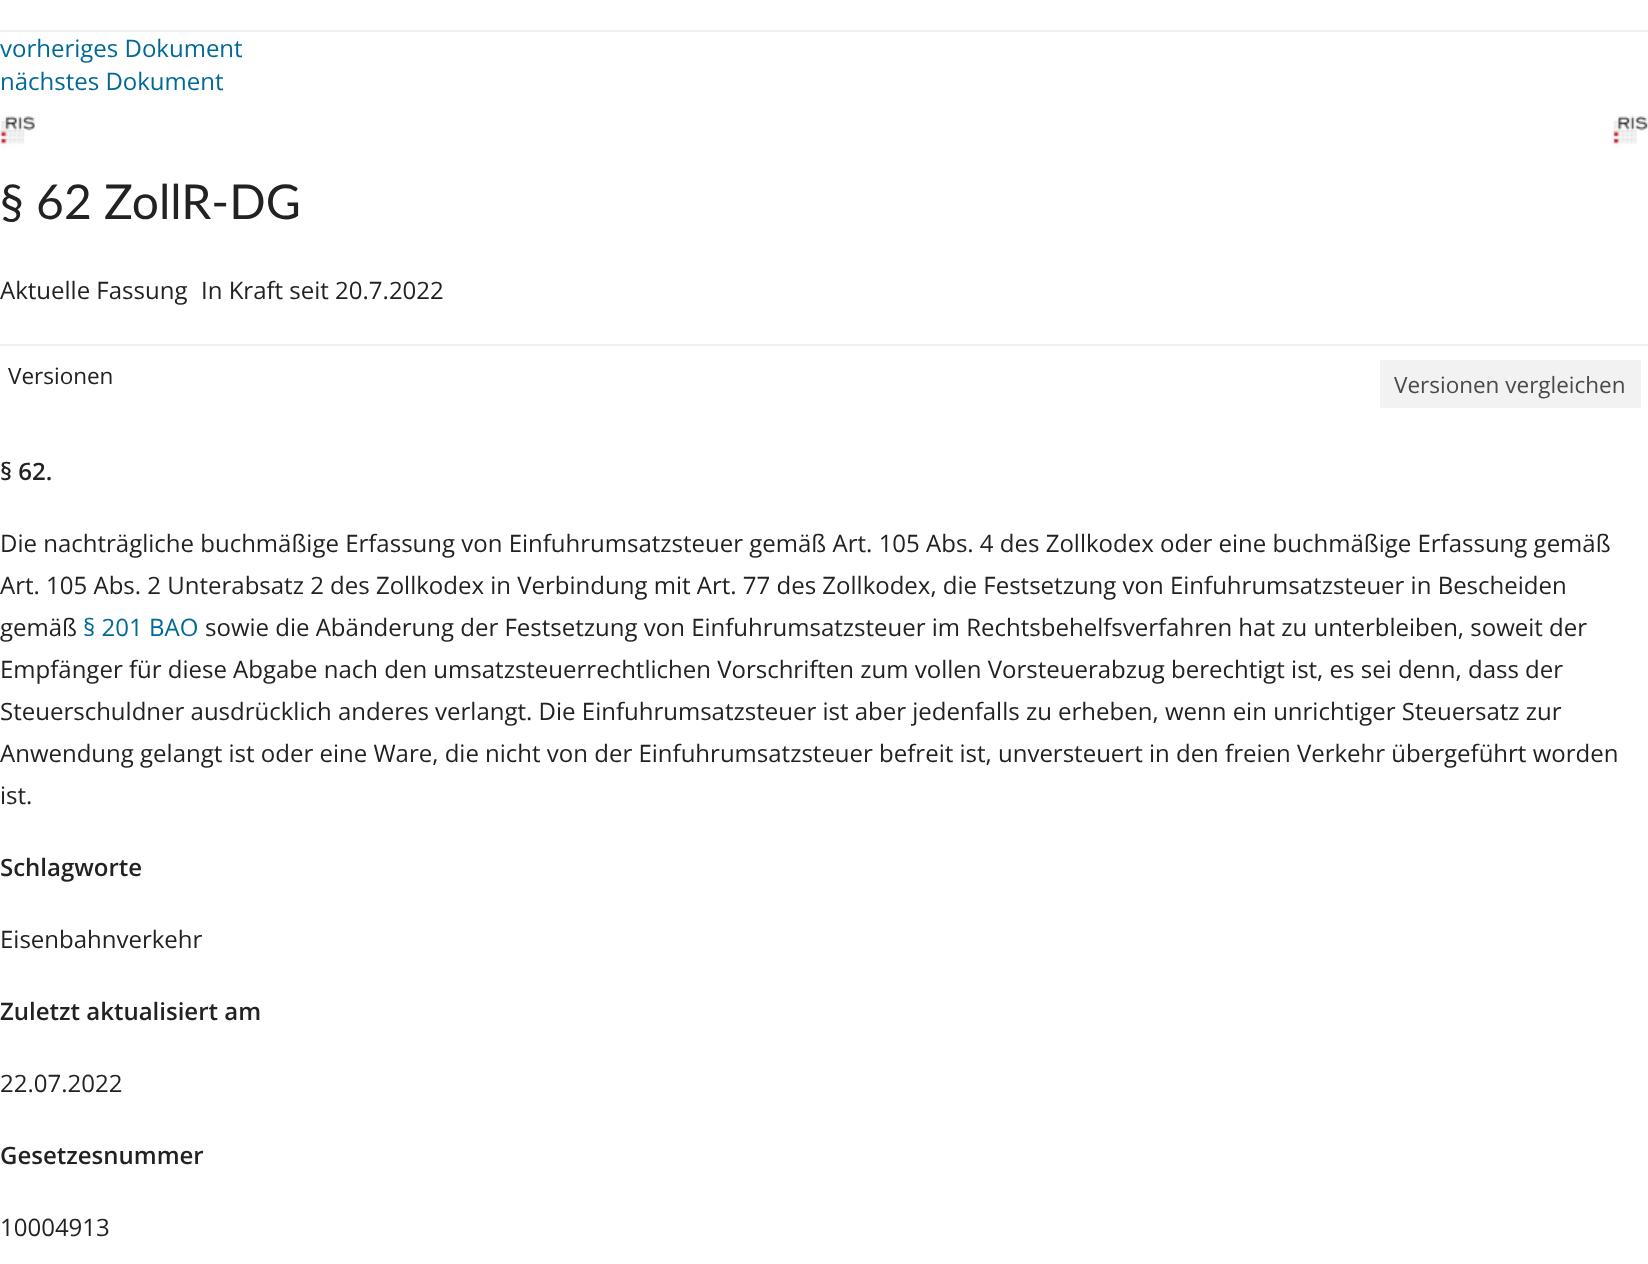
(async () => {
const canvas = document.querySelector("canvas")
canvas.width = 1648
canvas.height = 1264
const c = canvas.getContext("2d")
c.miterLimit = 4
c.fontKerning = "normal"
function T(s,x,y){c.fillText(s,x,y)}
function R(x,y,w,h){c.fillRect(x,y,w,h)}
async function I(src,x,y,w,h){const img=new Image();img.src=src;await img.decode();c.drawImage(img,x,y,w,h)}
c.fillStyle="#fff"
R(0,0,1648,1264)
c.fillStyle="#f0f0f0"
R(0,30,1648,2)
c.font="24px Open Sans"
c.fillStyle="#006997"
T("vorheriges Dokument",0,57)
T("nächstes Dokument",0,90)
await I("1.png",1612,116,36,32)
await I("2.png",0,116,36,32)
c.font="48px Lato"
c.fillStyle="#222"
T("§ 62 ZollR-DG",0,219)
c.font="24px Open Sans"
T("Aktuelle Fassung",0,299)
T("In Kraft seit 20.7.2022",201,299)
c.fillStyle="#f0f0f0"
R(0,344,1648,2)
c.font="22.5px Open Sans"
c.fillStyle="#222"
T("Versionen",8,384)
c.fillStyle="#f2f2f2"
R(1380,360,261,48)
c.fillStyle="#4a4a4a"
T("Versionen vergleichen",1394,393)
c.font="600 24px Open Sans"
c.fillStyle="#222"
T("§ 62.",0,480)
c.font="24px Open Sans"
T("Die nachträgliche buchmäßige Erfassung von Einfuhrumsatzsteuer gemäß Art. 105 Abs. 4 des Zollkodex oder eine buchmäßige Erfassung gemäß",0,552)
T("Art. 105 Abs. 2 Unterabsatz 2 des Zollkodex in Verbindung mit Art. 77 des Zollkodex, die Festsetzung von Einfuhrumsatzsteuer in Bescheiden",0,594)
T("gemäß",0,636)
c.fillStyle="#006997"
T("§ 201 BAO",83,636)
c.fillStyle="#222"
T("sowie die Abänderung der Festsetzung von Einfuhrumsatzsteuer im Rechtsbehelfsverfahren hat zu unterbleiben, soweit der",205,636)
T("Empfänger für diese Abgabe nach den umsatzsteuerrechtlichen Vorschriften zum vollen Vorsteuerabzug berechtigt ist, es sei denn, dass der",0,678)
T("Steuerschuldner ausdrücklich anderes verlangt. Die Einfuhrumsatzsteuer ist aber jedenfalls zu erheben, wenn ein unrichtiger Steuersatz zur",0,720)
T("Anwendung gelangt ist oder eine Ware, die nicht von der Einfuhrumsatzsteuer befreit ist, unversteuert in den freien Verkehr übergeführt worden",0,762)
T("ist.",0,804)
c.font="600 24px Open Sans"
T("Schlagworte",0,876)
c.font="24px Open Sans"
T("Eisenbahnverkehr",0,948)
c.font="600 24px Open Sans"
T("Zuletzt aktualisiert am",0,1020)
c.font="24px Open Sans"
T("22.07.2022",0,1092)
c.font="600 24px Open Sans"
T("Gesetzesnummer",0,1164)
c.font="24px Open Sans"
T("10004913",0,1236)
})()
